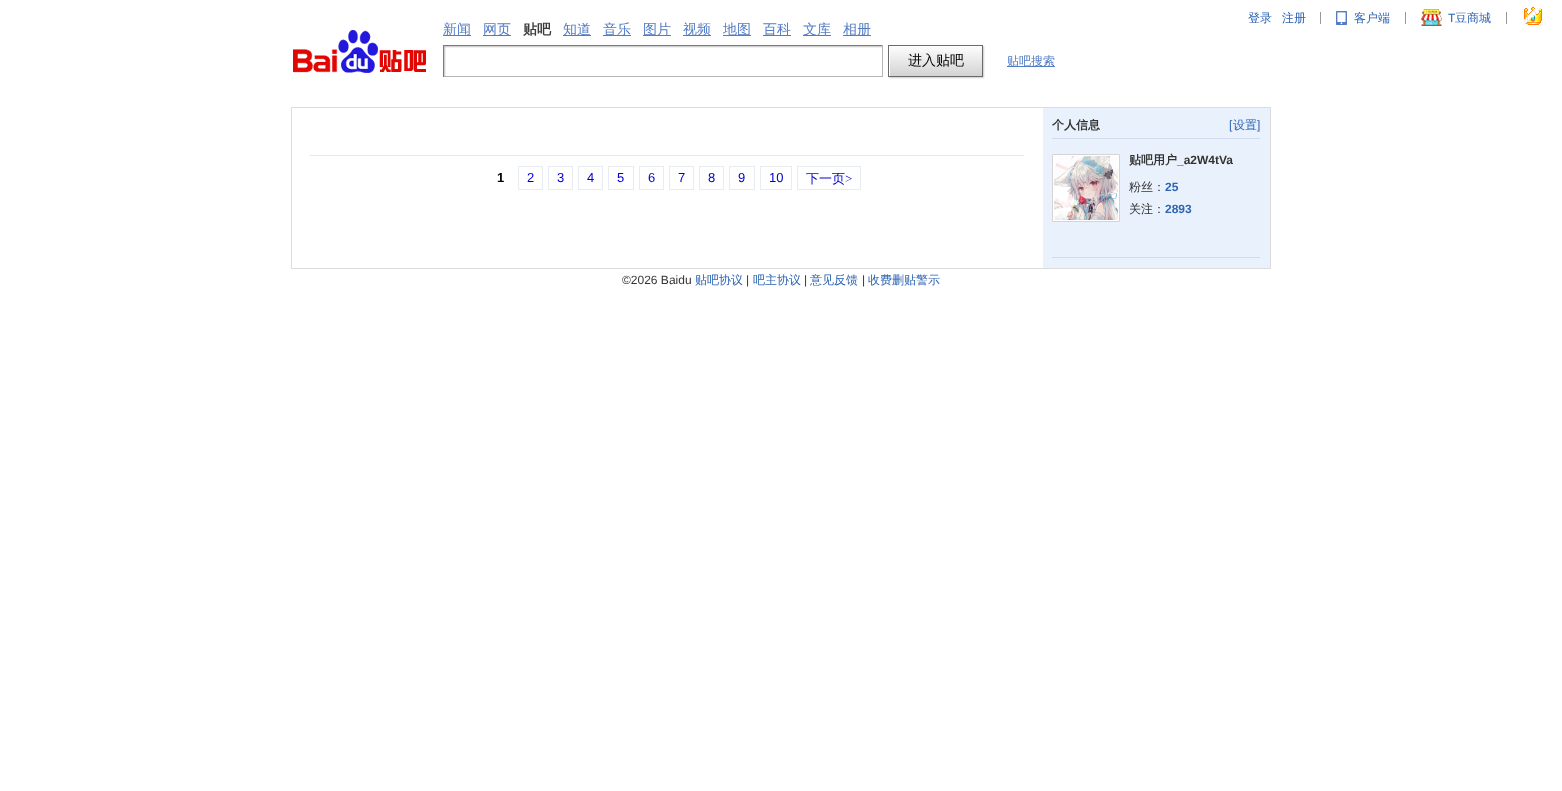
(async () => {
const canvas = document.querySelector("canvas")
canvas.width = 1562
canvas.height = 791
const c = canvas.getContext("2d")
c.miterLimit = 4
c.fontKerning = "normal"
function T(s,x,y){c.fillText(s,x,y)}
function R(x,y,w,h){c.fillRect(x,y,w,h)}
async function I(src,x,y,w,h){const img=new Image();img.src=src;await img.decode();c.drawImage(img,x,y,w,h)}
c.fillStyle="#fff"
R(0,0,1562,791)
c.font="500 12px WenQuanYi Zen Hei"
c.fillStyle="#2d64b3"
T("登录",1248,22)
T("注册",1282,22)
c.fillStyle="#999"
R(1320,12,1,12)
await I("1.png",1336,11,11,14)
c.fillStyle="#2d64b3"
T("客户端",1354,22)
c.fillStyle="#999"
R(1405,12,1,12)
await I("2.png",1421,9,21,17)
c.font="12px Liberation Sans"
c.fillStyle="#2d64b3"
T("T",1448,22)
c.font="500 12px WenQuanYi Zen Hei"
T("豆商城",1455,22)
c.fillStyle="#999"
R(1506,12,1,12)
await I("3.png",1524,7,18,18)
await I("4.png",293,30,133,43)
c.fillStyle="#537cc4"
R(443,35,28,1)
c.font="500 14px WenQuanYi Zen Hei"
T("新闻",443,34)
R(483,35,28,1)
T("网页",483,34)
c.font="bold 14px WenQuanYi Zen Hei"
c.fillStyle="#3b3b3b"
T("贴吧",523,34)
c.fillStyle="#537cc4"
R(563,35,28,1)
c.font="500 14px WenQuanYi Zen Hei"
T("知道",563,34)
R(603,35,28,1)
T("音乐",603,34)
R(643,35,28,1)
T("图片",643,34)
R(683,35,28,1)
T("视频",683,34)
R(723,35,28,1)
T("地图",723,34)
R(763,35,28,1)
T("百科",763,34)
R(803,35,28,1)
T("文库",803,34)
R(843,35,28,1)
T("相册",843,34)
await I("5.png",444,46,438,30)
c.fillStyle="#7b7b7b"
R(443,45,440,1)
c.fillStyle="#b6b6b6"
R(882,45,1,32)
R(443,76,440,1)
c.fillStyle="#7b7b7b"
R(443,45,1,32)
await I("6.png",888,45,97,34)
await I("7.png",888,45,95,32)
c.fillStyle="#000"
T("进入贴吧",908,65)
c.fillStyle="#537cc4"
R(1007,66,48,1)
c.font="500 12px WenQuanYi Zen Hei"
T("贴吧搜索",1007,65)
c.fillStyle="#e9f2fc"
R(1043,108,227,160)
c.strokeStyle="#dcdcdc"
c.strokeRect(291.5,107.5,979,161)
c.fillStyle="#e7e7e7"
R(310,155,714,1)
c.font="bold 13px Liberation Sans"
c.fillStyle="#000"
T("1",497,182)
c.strokeStyle="#e7ecf0"
c.strokeRect(518.5,166.5,24,23)
c.font="13px Liberation Sans"
c.fillStyle="#0000cd"
T("2",527,182)
c.strokeRect(548.5,166.5,24,23)
T("3",557,182)
c.strokeRect(578.5,166.5,24,23)
T("4",587,182)
c.strokeRect(608.5,166.5,25,23)
T("5",617,182)
c.strokeRect(639.5,166.5,24,23)
T("6",648,182)
c.strokeRect(669.5,166.5,24,23)
T("7",678,182)
c.strokeRect(699.5,166.5,24,23)
T("8",708,182)
c.strokeRect(729.5,166.5,25,23)
T("9",738,182)
c.strokeRect(760.5,166.5,31,23)
T("10",769,182)
c.strokeRect(797.5,166.5,63,23)
c.font="500 13px WenQuanYi Zen Hei"
T("下一页",806,183)
c.font="13px Liberation Serif"
T(">",845,183)
c.fillStyle="#d0dbed"
R(1052,257,208,1)
R(1052,138,208,1)
c.font="bold 12px WenQuanYi Zen Hei"
c.fillStyle="#333"
T("个人信息",1052,129)
c.font="12px Liberation Sans"
c.fillStyle="#2d64b3"
T("[",1229,129)
c.font="500 12px WenQuanYi Zen Hei"
T("设置",1233,129)
c.font="12px Liberation Sans"
T("]",1257,129)
c.fillStyle="#fff"
c.beginPath()
c.rect(1052.5,154.5,67,67)
c.fill()
c.strokeStyle="#d4d4d4"
c.stroke()
await I("8.png",1054,156,64,64)
c.font="bold 12px WenQuanYi Zen Hei"
c.fillStyle="#333"
T("贴吧用户",1129,164)
c.font="bold 12px Liberation Sans"
T("_a2W4tVa",1177,164)
c.font="500 12px WenQuanYi Zen Hei"
T("粉丝：",1129,191)
c.font="bold 12px Liberation Sans"
c.fillStyle="#2d64b3"
T("25",1165,191)
c.font="500 12px WenQuanYi Zen Hei"
c.fillStyle="#333"
T("关注：",1129,213)
c.font="bold 12px Liberation Sans"
c.fillStyle="#2d64b3"
T("2893",1165,213)
c.font="12px Liberation Sans"
c.fillStyle="#333"
T("©2026 Baidu",622,284)
c.font="500 12px WenQuanYi Zen Hei"
c.fillStyle="#2d64b3"
T("贴吧协议",695,284)
c.font="12px Liberation Sans"
c.fillStyle="#333"
T("|",746,284)
c.font="500 12px WenQuanYi Zen Hei"
c.fillStyle="#2d64b3"
T("吧主协议",753,284)
c.font="12px Liberation Sans"
c.fillStyle="#333"
T("|",804,284)
c.font="500 12px WenQuanYi Zen Hei"
c.fillStyle="#2d64b3"
T("意见反馈",810,284)
c.font="12px Liberation Sans"
c.fillStyle="#333"
T("|",862,284)
c.font="500 12px WenQuanYi Zen Hei"
c.fillStyle="#2d64b3"
T("收费删贴警示",868,284)
})()
